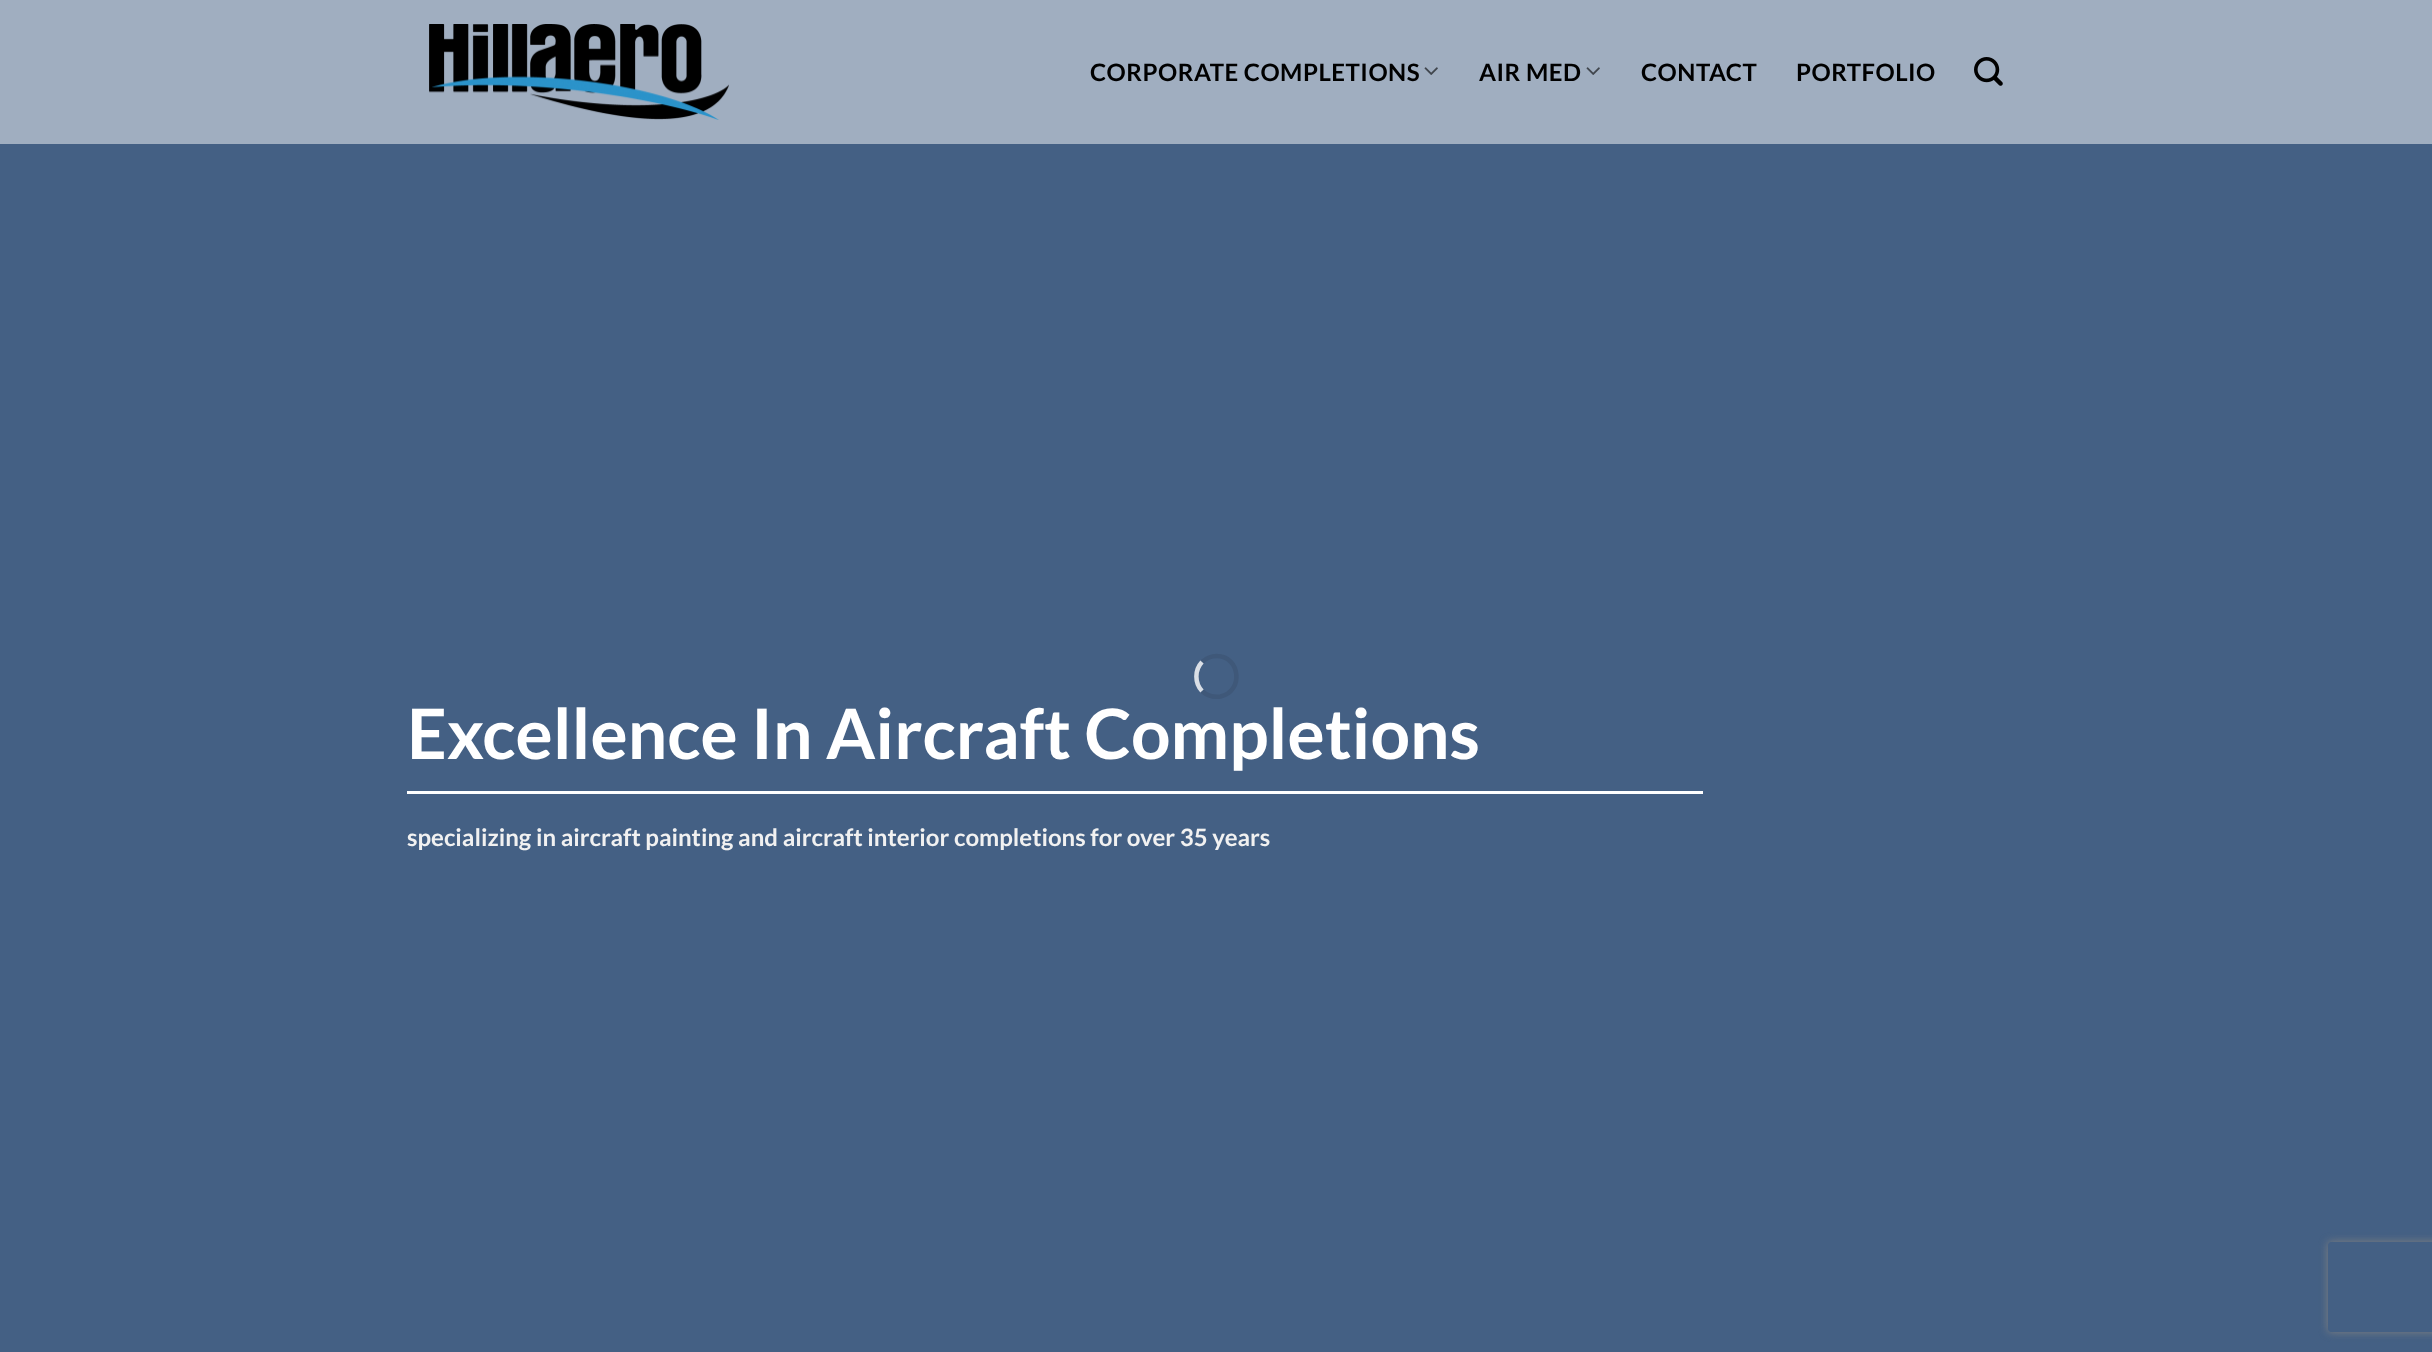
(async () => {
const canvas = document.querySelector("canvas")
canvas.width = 2432
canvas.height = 1352
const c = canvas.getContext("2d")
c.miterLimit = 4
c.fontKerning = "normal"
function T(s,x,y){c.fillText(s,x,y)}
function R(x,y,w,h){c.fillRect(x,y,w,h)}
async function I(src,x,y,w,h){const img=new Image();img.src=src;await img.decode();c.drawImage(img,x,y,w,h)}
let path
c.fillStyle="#446084"
R(0,0,2432,1352)
c.fillStyle="#a0aec0"
R(0,0,2432,144)
await I("1.png",429,24,300,96)
c.letterSpacing="0.5px"
c.font="bold 24px Lato"
c.fillStyle="#000"
T("CORPORATE COMPLETIONS",1090,81)
await I("2.png",1424,67,14,8)
T("AIR MED",1479,81)
await I("2.png",1586,67,14,8)
T("CONTACT",1641,81)
T("PORTFOLIO",1796,81)
await I("3.png",1974,57,29,29)
path = new Path2D("M1202 662c4-3.5 9-6 14.5-6c24 0 27.5 35.5 4 40.5c-6.5 1-13.5-1-18.5-5.5")
c.strokeStyle="#3f5879"
c.lineWidth=4.5
c.stroke(path)
path = new Path2D("M1202 691c-7.5-8-7.5-21 0-29")
c.strokeStyle="#dadfe6"
c.stroke(path)
c.letterSpacing="0px"
c.font="bold 69.6px Lato"
c.fillStyle="#fff"
T("Excellence In Aircraft Completions",407,759)
R(407,791,1296,3)
c.font="bold 24px Lato"
c.fillStyle="#f1f1f1"
T("specializing in aircraft painting and aircraft interior completions for over 35 years",407,846)
c.save()
path = new Path2D("M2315 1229h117v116h-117zm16 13h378c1.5 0 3 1.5 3 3v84c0 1.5-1.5 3-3 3h-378c-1.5 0-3-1.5-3-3v-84c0-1.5 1.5-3 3-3z")
c.clip(path,"evenodd")
c.fillStyle="#808080"
c.filter="blur(4px)"
c.beginPath()
c.roundRect(2328,1242,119,90,3)
c.fill()
c.filter="none"
c.restore()
})()
